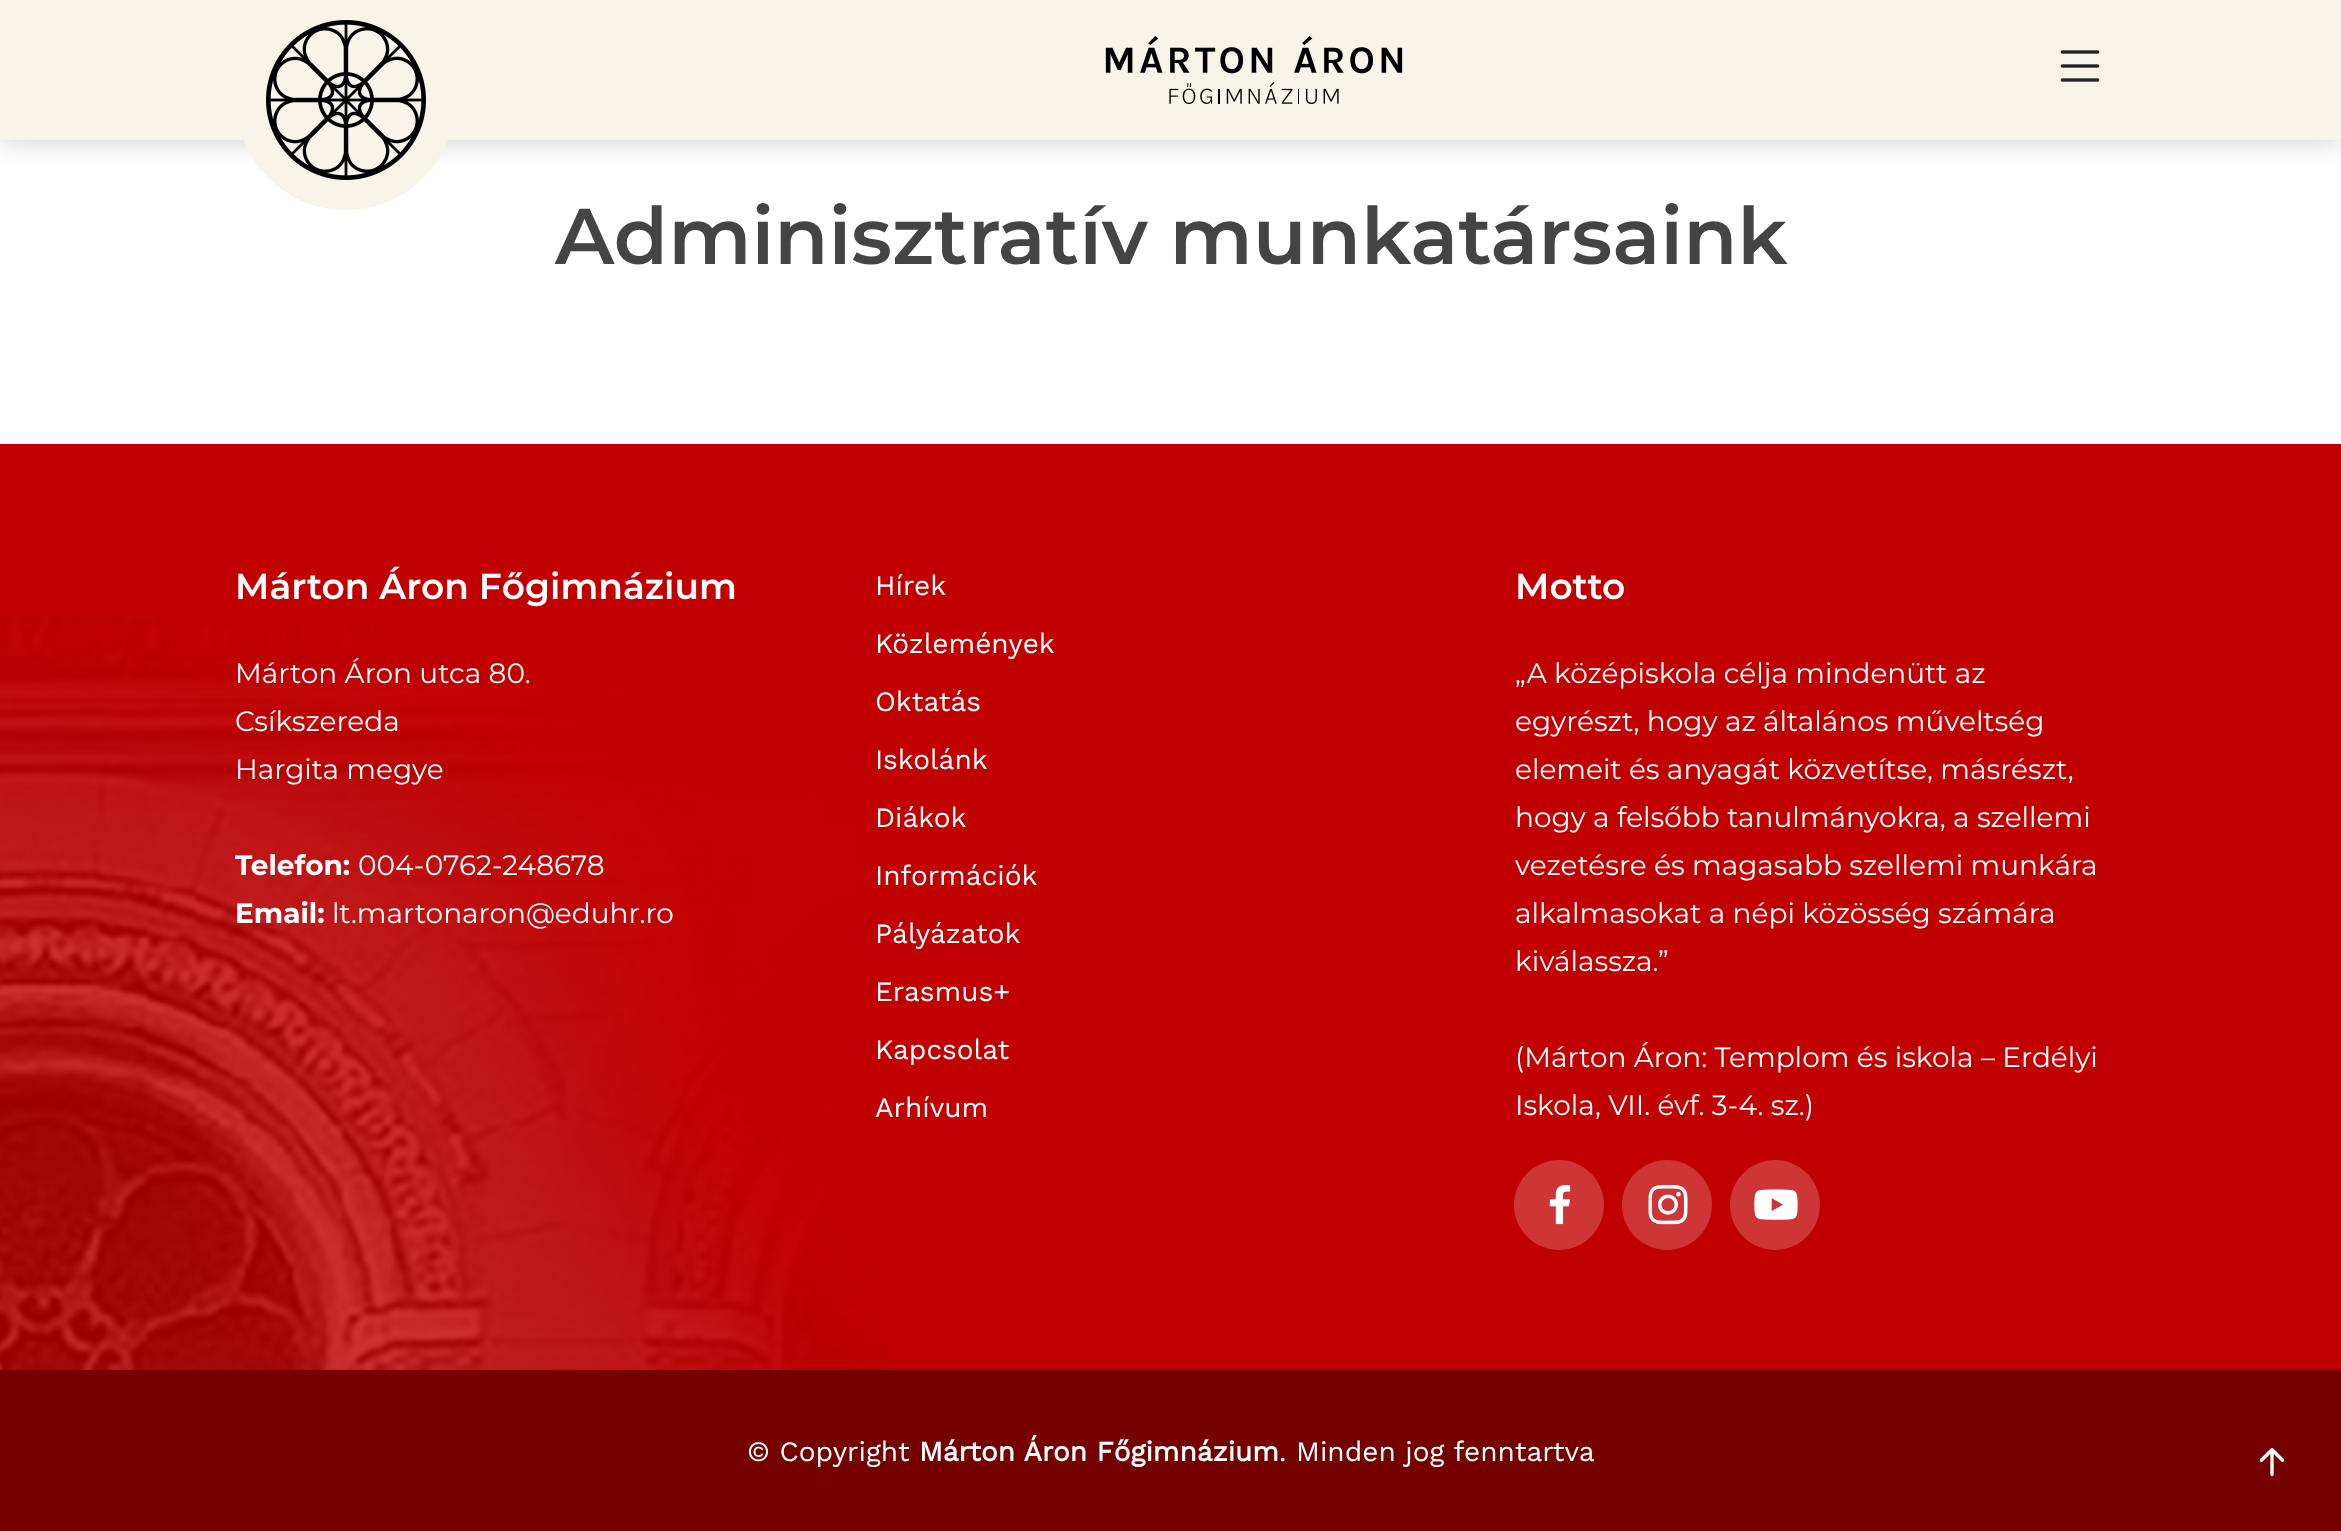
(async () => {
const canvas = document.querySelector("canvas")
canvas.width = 2341
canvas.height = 1531
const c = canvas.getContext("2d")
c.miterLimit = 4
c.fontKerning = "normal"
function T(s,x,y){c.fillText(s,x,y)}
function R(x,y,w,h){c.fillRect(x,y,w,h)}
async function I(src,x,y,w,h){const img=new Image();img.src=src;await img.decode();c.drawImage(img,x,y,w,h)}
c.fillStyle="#fff"
R(0,0,2341,1531)
c.fillStyle="#00000033"
c.filter="blur(15px)"
c.beginPath()
c.rect(0,0,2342,140)
c.fill()
c.filter="none"
c.fillStyle="#f9f4ea"
R(0,0,2341,140)
c.beginPath()
c.arc(346,100,110,0,7)
c.fill()
await I("1.png",266,20,160,160)
await I("2.png",1105,36,298,68)
await I("3.png",2060,50,40,32)
c.font="600 79.1px Montserrat"
c.fillStyle="#444"
T("Adminisztratív munkatársaink",555,264)
c.fillStyle="#740000"
R(0,1370,2341,161)
c.fillStyle="#c10001"
R(0,444,2341,926)
await I("4.png",0,615,892,755)
c.font="600 36px Montserrat"
c.fillStyle="#fff"
T("Márton Áron Főgimnázium",235,599)
c.font="28px Montserrat"
T("Márton Áron utca 80.",235,683)
T("Csíkszereda",235,731)
T("Hargita megye",235,779)
c.font="bold 28px Montserrat"
T("Telefon:",235,875)
c.font="28px Montserrat"
T("004-0762-248678",358,875)
c.font="bold 28px Montserrat"
T("Email:",235,923)
c.font="28px Montserrat"
T("lt.martonaron@eduhr.ro",332,923)
c.font="28px Work Sans"
T("Hírek",875,595)
T("Közlemények",875,653)
T("Oktatás",875,711)
T("Iskolánk",875,769)
T("Diákok",875,827)
T("Információk",875,885)
T("Pályázatok",875,943)
T("Erasmus+",875,1001)
T("Kapcsolat",875,1059)
T("Arhívum",875,1117)
c.font="600 36px Montserrat"
T("Motto",1515,599)
c.font="28px Montserrat"
T("„A középiskola célja mindenütt az",1515,683)
T("egyrészt, hogy az általános műveltség",1515,731)
T("elemeit és anyagát közvetítse, másrészt,",1515,779)
T("hogy a felsőbb tanulmányokra, a szellemi",1515,827)
T("vezetésre és magasabb szellemi munkára",1515,875)
T("alkalmasokat a népi közösség számára",1515,923)
T("kiválassza.”",1515,971)
T("(Márton Áron: Templom és iskola – Erdélyi",1515,1067)
T("Iskola, VII. évf. 3-4. sz.)",1515,1115)
c.fillStyle="#ce3636"
c.beginPath()
c.arc(1559,1205,45,0,7)
c.fill()
await I("5.png",1549,1185,22,40)
c.beginPath()
c.arc(1667,1205,45,0,7)
c.fill()
await I("6.png",1648,1185,40,40)
c.beginPath()
c.arc(1775,1205,45,0,7)
c.fill()
await I("7.png",1754,1189,44,31)
c.font="28px Work Sans"
c.fillStyle="#fff"
T("© Copyright",747,1461)
c.font="bold 28px Work Sans"
T("Márton Áron Főgimnázium",919,1461)
c.font="28px Work Sans"
T(". Minden jog fenntartva",1279,1461)
await I("8.png",2259,1448,26,28)
})()
